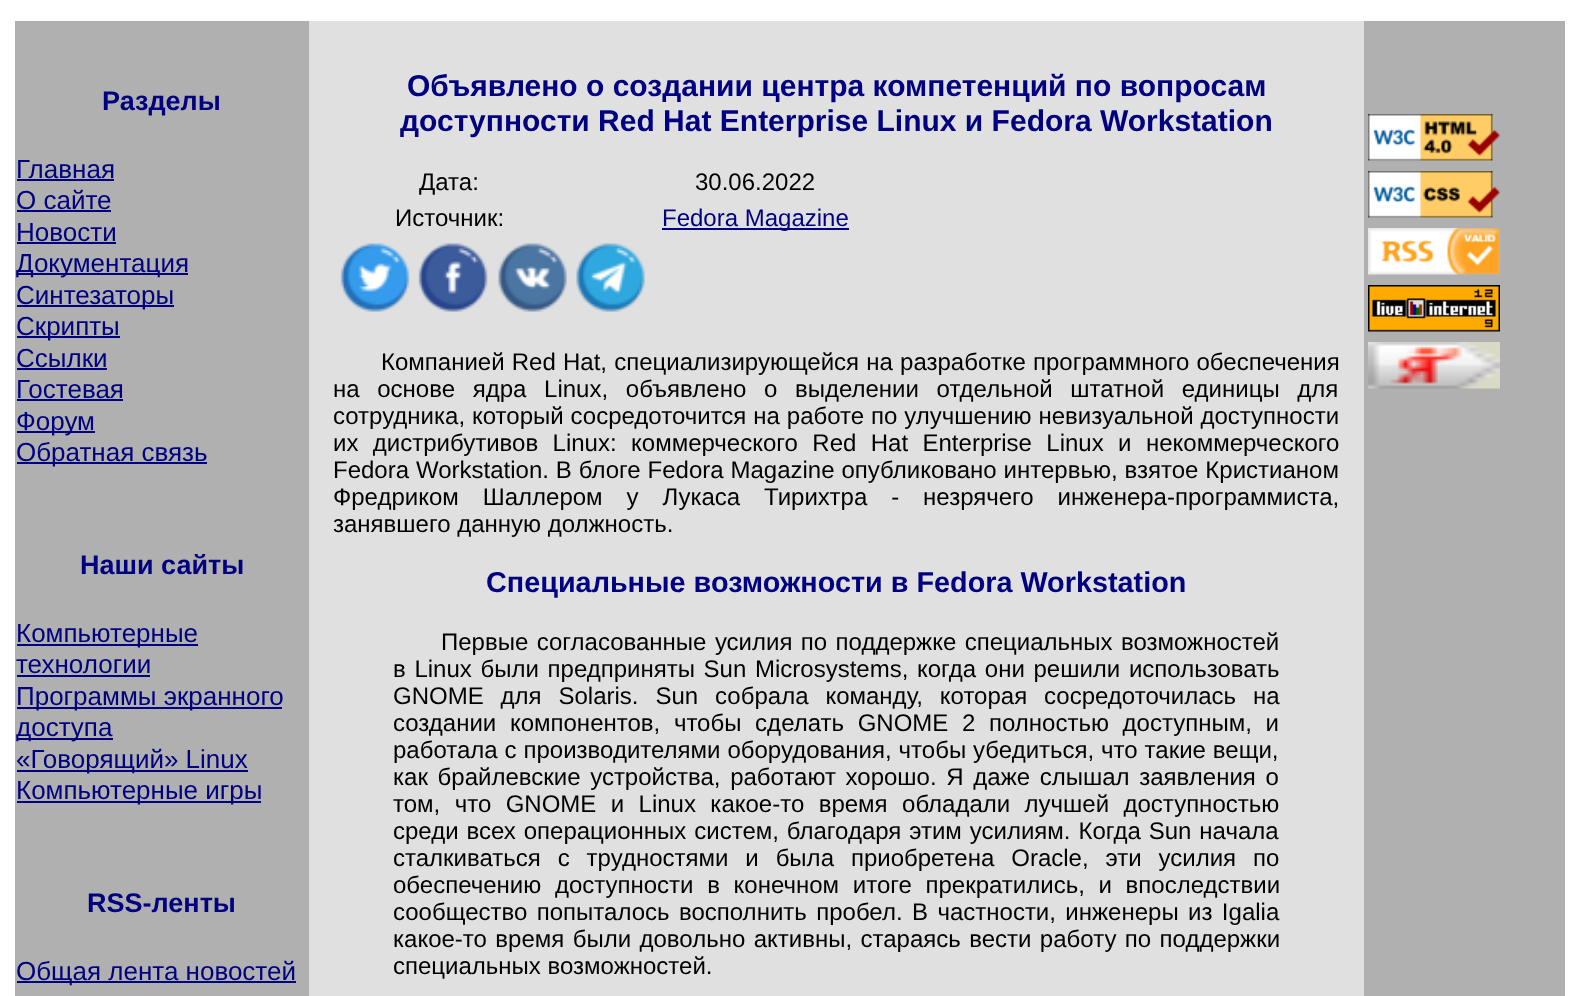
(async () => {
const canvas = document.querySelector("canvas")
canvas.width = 1579
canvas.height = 996
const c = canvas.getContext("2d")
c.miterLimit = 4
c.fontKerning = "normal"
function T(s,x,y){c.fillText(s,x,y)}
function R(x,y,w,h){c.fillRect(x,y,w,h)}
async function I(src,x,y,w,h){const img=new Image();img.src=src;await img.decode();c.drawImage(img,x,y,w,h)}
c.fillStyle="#fff"
R(0,0,1579,996)
c.fillStyle="#b0b0b0"
R(15,21,294,975)
c.font="bold 27px Liberation Sans"
c.fillStyle="#000080"
T("Разделы",102,110)
c.font="26px Liberation Sans"
T("Главная",16,178)
R(17,179,97,2)
T("О сайте",16,209)
R(17,210,94,2)
T("Новости",16,241)
R(17,242,99,2)
R(17,273,171,2)
T("Документация",16,272)
R(17,305,157,2)
T("Синтезаторы",16,304)
R(17,336,103,2)
T("Скрипты",16,335)
T("Ссылки",16,367)
R(17,368,90,2)
T("Гостевая",16,398)
R(17,399,106,2)
R(17,431,78,2)
T("Форум",16,430)
R(17,462,190,2)
T("Обратная связь",16,461)
c.font="bold 27px Liberation Sans"
T("Наши сайты",80,574)
R(17,644,181,2)
c.font="26px Liberation Sans"
T("Компьютерные",16,642)
T("технологии",16,673)
R(17,675,133,2)
R(17,707,265,2)
T("Программы экранного",16,705)
R(17,738,96,2)
T("доступа",16,736)
R(17,770,231,2)
T("«Говорящий» Linux",16,768)
R(17,801,244,2)
T("Компьютерные игры",16,799)
c.font="bold 27px Liberation Sans"
T("RSS-ленты",87,912)
R(17,981,279,2)
c.font="26px Liberation Sans"
T("Общая лента новостей",16,980)
c.fillStyle="#e0e0e0"
R(309,21,1055,975)
c.font="bold 30px Liberation Sans"
c.fillStyle="#000080"
T("Объявлено о создании центра компетенций по вопросам",407,96)
T("доступности Red Hat Enterprise Linux и Fedora Workstation",400,131)
c.font="24px Liberation Sans"
c.fillStyle="#000"
T("Дата:",419,190)
T("30.06.2022",695,190)
T("Источник:",395,226)
c.fillStyle="#000080"
R(662,228,187,2)
T("Fedora Magazine",662,226)
await I("1.png",340,243,70,69)
await I("2.png",418,243,70,69)
await I("3.png",498,243,69,69)
await I("4.png",576,243,69,69)
c.wordSpacing="0.5px"
c.fillStyle="#000"
T("Компанией Red Hat, специализирующейся на разработке программного обеспечения",381,370)
c.wordSpacing="11px"
T("на основе ядра Linux, объявлено о выделении отдельной штатной единицы для",333,397)
c.wordSpacing="0.25px"
T("сотрудника, который сосредоточится на работе по улучшению невизуальной доступности",333,424)
c.wordSpacing="7.75px"
T("их дистрибутивов Linux: коммерческого Red Hat Enterprise Linux и некоммерческого",333,451)
c.wordSpacing="0.25px"
T("Fedora Workstation. В блоге Fedora Magazine опубликовано интервью, взятое Кристианом",333,478)
c.wordSpacing="17.25px"
T("Фредриком Шаллером у Лукаса Тирихтра - незрячего инженера-программиста,",333,505)
c.wordSpacing="0px"
T("занявшего данную должность.",333,532)
c.font="bold 28.8px Liberation Sans"
c.fillStyle="#000080"
T("Специальные возможности в Fedora Workstation",486,592)
c.wordSpacing="1.75px"
c.font="24px Liberation Sans"
c.fillStyle="#000"
T("Первые согласованные усилия по поддержке специальных возможностей",441,650)
c.wordSpacing="2px"
T("в Linux были предприняты Sun Microsystems, когда они решили использовать",393,677)
c.wordSpacing="10.25px"
T("GNOME для Solaris. Sun собрала команду, которая сосредоточилась на",393,704)
c.wordSpacing="7px"
T("создании компонентов, чтобы сделать GNOME 2 полностью доступным, и",393,731)
c.wordSpacing="0.25px"
T("работала с производителями оборудования, чтобы убедиться, что такие вещи,",393,758)
c.wordSpacing="3px"
T("как брайлевские устройства, работают хорошо. Я даже слышал заявления о",393,785)
c.wordSpacing="7.75px"
T("том, что GNOME и Linux какое-то время обладали лучшей доступностью",393,812)
c.wordSpacing="1.25px"
T("среди всех операционных систем, благодаря этим усилиям. Когда Sun начала",393,839)
c.wordSpacing="10.25px"
T("сталкиваться с трудностями и была приобретена Oracle, эти усилия по",393,866)
c.wordSpacing="7px"
T("обеспечению доступности в конечном итоге прекратились, и впоследствии",393,893)
c.wordSpacing="2.75px"
T("сообщество попыталось восполнить пробел. В частности, инженеры из Igalia",393,920)
c.wordSpacing="1.75px"
T("какое-то время были довольно активны, стараясь вести работу по поддержки",393,947)
c.wordSpacing="0px"
T("специальных возможностей.",393,974)
c.fillStyle="#b0b0b0"
R(1364,21,201,975)
await I("5.png",1368,114,132,47)
await I("6.png",1368,171,132,47)
await I("7.png",1368,228,132,47)
await I("8.png",1368,285,132,47)
await I("9.png",1368,342,132,47)
})()
